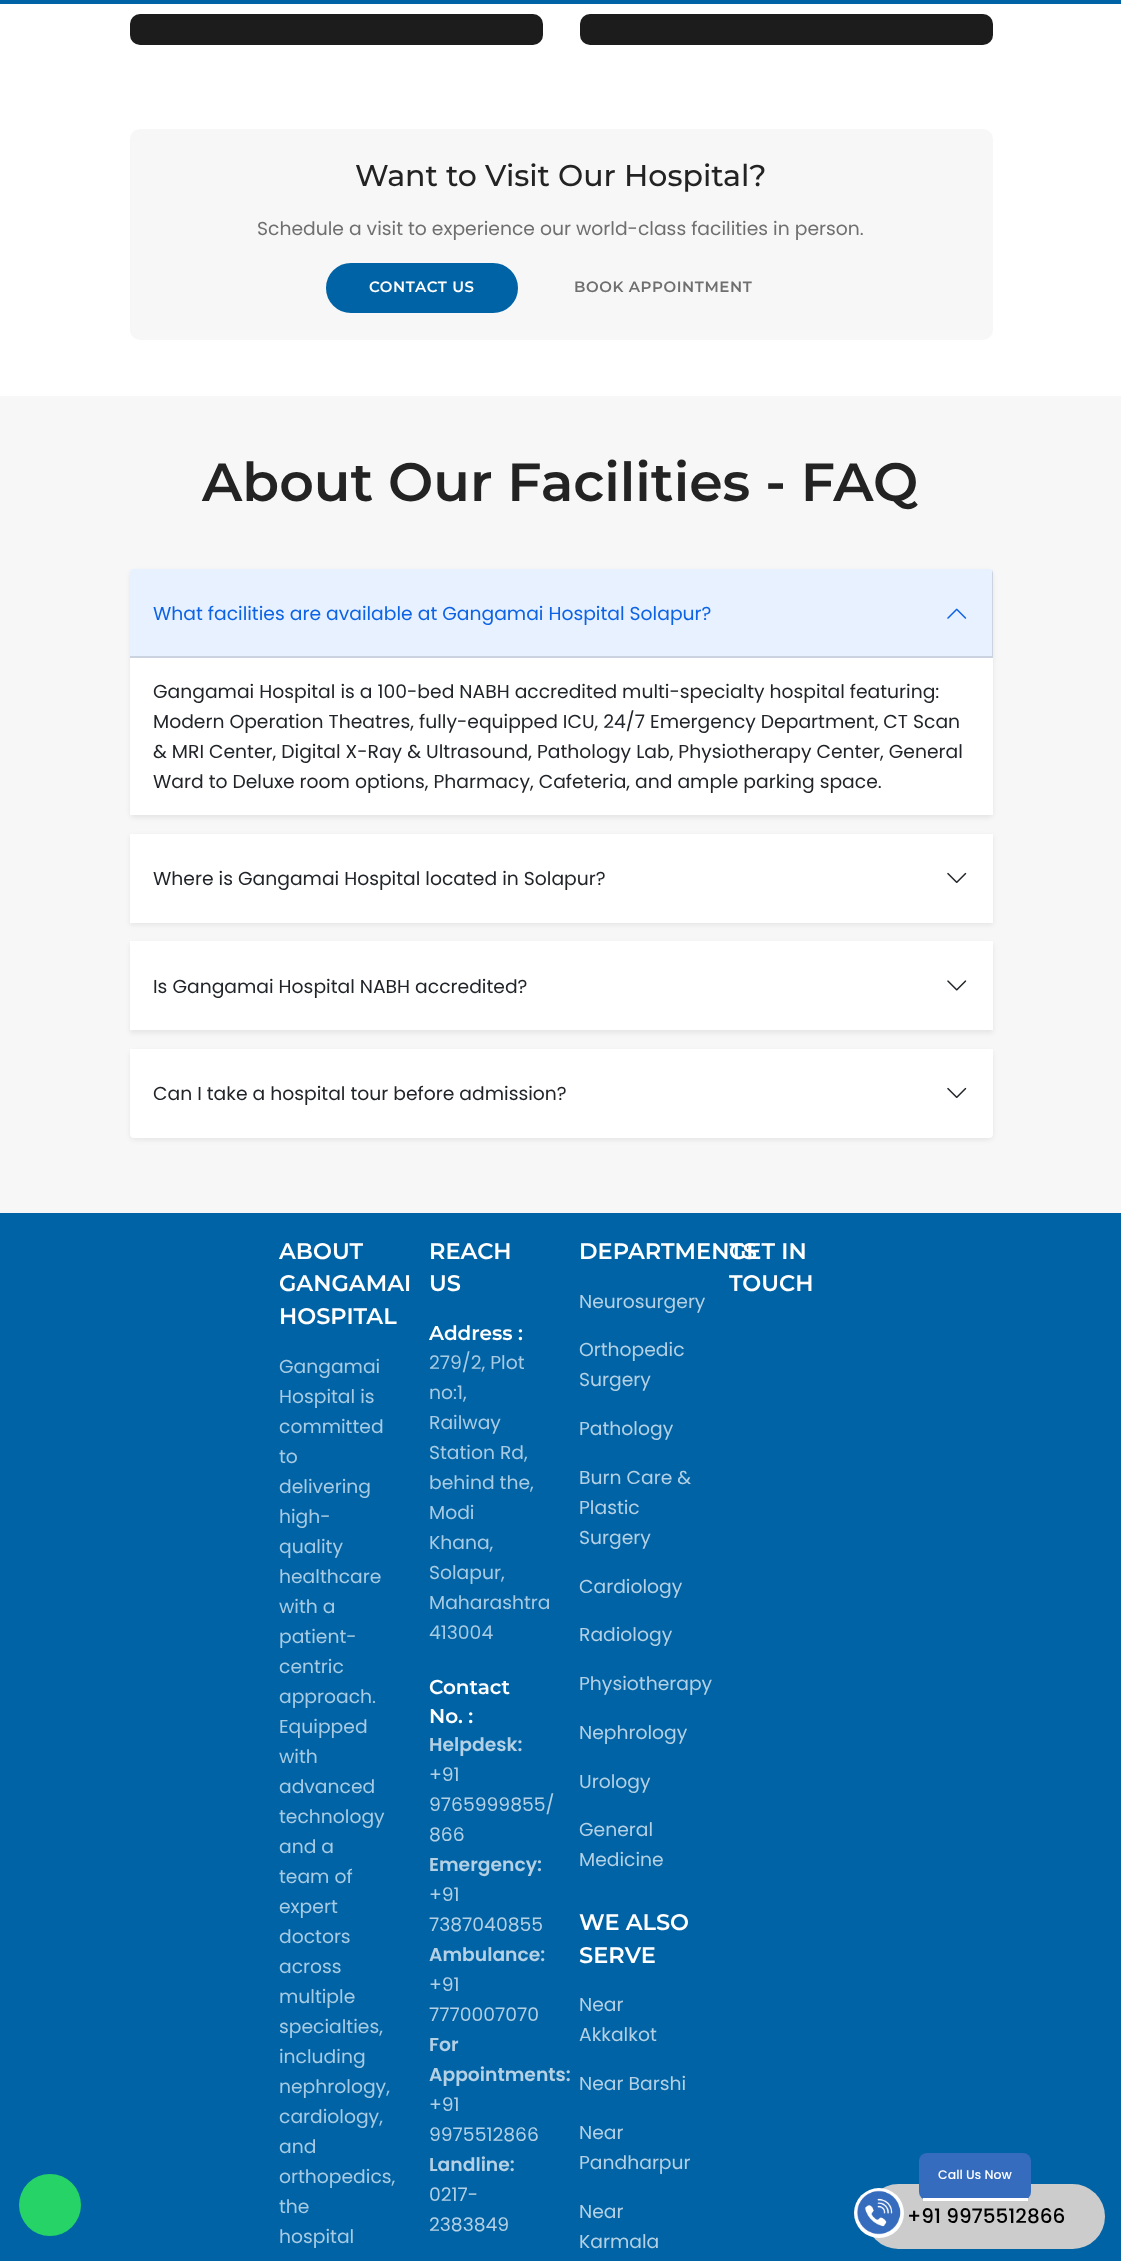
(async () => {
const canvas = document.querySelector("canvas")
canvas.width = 1121
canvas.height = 2261
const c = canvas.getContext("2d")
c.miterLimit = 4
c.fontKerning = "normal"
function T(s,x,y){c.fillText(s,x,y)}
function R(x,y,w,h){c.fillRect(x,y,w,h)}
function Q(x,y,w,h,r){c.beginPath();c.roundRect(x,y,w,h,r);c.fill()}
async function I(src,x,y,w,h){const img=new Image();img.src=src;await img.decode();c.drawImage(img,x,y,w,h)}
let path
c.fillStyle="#fff"
R(0,0,1121,2261)
c.fillStyle="#0063a5"
R(0,0,1121,4)
c.fillStyle="#1c1c1c"
Q(130,14,413,31,10)
Q(580,14,413,31,10)
c.fillStyle="#f7f7f7"
Q(130,129,863,211,10)
c.font="500 30px Montserrat"
c.fillStyle="#232323"
T("Want to Visit Our Hospital?",355,186)
c.font="18.75px Poppins"
c.fillStyle="#6f6f6f"
T("Schedule a visit to experience our world-class facilities in person.",257,235)
c.fillStyle="#0063a5"
c.beginPath()
c.roundRect(327.5,264.5,189,47,23.5)
c.fill()
c.strokeStyle="#0063a5"
c.lineWidth=3
c.stroke()
c.letterSpacing="0.6px"
c.font="600 15px Montserrat"
c.fillStyle="#fff"
T("CONTACT US",369,292)
c.fillStyle="#6f6f6f"
T("BOOK APPOINTMENT",574,292)
c.fillStyle="#f7f7f7"
R(0,396,1121,817)
c.letterSpacing="0px"
c.font="600 53.75px Montserrat"
c.fillStyle="#232323"
T("About Our Facilities - FAQ",202,501)
c.fillStyle="#00000012"
c.filter="blur(2.5px)"
c.beginPath()
c.roundRect(130,571,863,247,5)
c.fill()
c.filter="none"
c.fillStyle="#fff"
c.beginPath()
c.roundRect(130,569,863,246,[5,5,0,0])
c.fill()
c.fillStyle="#e7f1ff"
c.beginPath()
c.roundRect(130,569,863,89,[4,4,0,0])
c.fill()
c.fillStyle="#0000001f"
path = new Path2D("M130 656v2h863v-85l-1-3v86z")
c.fill(path)
c.font="18.75px Poppins"
c.fillStyle="#0c63e4"
T("What facilities are available at Gangamai Hospital Solapur?",153,620)
await I("1.png",947,608,20,11)
c.fillStyle="#212529"
T("Gangamai Hospital is a 100-bed NABH accredited multi-specialty hospital featuring:",153,698)
T("Modern Operation Theatres, fully-equipped ICU, 24/7 Emergency Department, CT Scan",153,728)
T("& MRI Center, Digital X-Ray & Ultrasound, Pathology Lab, Physiotherapy Center, General",153,758)
T("Ward to Deluxe room options, Pharmacy, Cafeteria, and ample parking space.",153,788)
c.fillStyle="#00000012"
c.filter="blur(2.5px)"
c.beginPath()
c.rect(130,836,863,89)
c.fill()
c.filter="none"
c.fillStyle="#fff"
R(130,834,863,89)
c.fillStyle="#212529"
T("Where is Gangamai Hospital located in Solapur?",153,885)
await I("2.png",947,872,20,11)
c.fillStyle="#00000012"
c.filter="blur(2.5px)"
c.beginPath()
c.rect(130,944,863,89)
c.fill()
c.filter="none"
c.fillStyle="#fff"
R(130,941,863,89)
c.fillStyle="#212529"
T("Is Gangamai Hospital NABH accredited?",153,993)
await I("3.png",947,980,20,11)
c.fillStyle="#00000012"
c.filter="blur(2.5px)"
c.beginPath()
c.roundRect(130,1051,863,89,5)
c.fill()
c.filter="none"
c.fillStyle="#fff"
c.beginPath()
c.roundRect(130,1049,863,89,[0,0,4,4])
c.fill()
c.fillStyle="#212529"
T("Can I take a hospital tour before admission?",153,1100)
await I("2.png",947,1087,20,11)
c.fillStyle="#0063a5"
R(0,1213,1121,1048)
c.fillStyle="#25d366"
c.beginPath()
c.arc(50,2205,31,0,7)
c.fill()
c.font="600 22.5px Montserrat"
c.fillStyle="#fff"
T("ABOUT",279,1259)
T("GANGAMAI",279,1291)
T("HOSPITAL",279,1324)
c.font="18.75px Poppins"
c.fillStyle="#a7cbe3"
T("Gangamai",279,1373)
T("Hospital is",279,1403)
T("committed",279,1433)
T("to",279,1463)
T("delivering",279,1493)
T("high-",279,1523)
T("quality",279,1553)
T("healthcare",279,1583)
T("with a",279,1613)
T("patient-",279,1643)
T("centric",279,1673)
T("approach.",279,1703)
T("Equipped",279,1733)
T("with",279,1763)
T("advanced",279,1793)
T("technology",279,1823)
T("and a",279,1853)
T("team of",279,1883)
T("expert",279,1913)
T("doctors",279,1943)
T("across",279,1973)
T("multiple",279,2003)
T("specialties,",279,2033)
T("including",279,2063)
T("nephrology,",279,2093)
T("cardiology,",279,2123)
T("and",279,2153)
T("orthopedics,",279,2183)
T("the",279,2213)
T("hospital",279,2243)
c.font="600 22.5px Montserrat"
c.fillStyle="#fff"
T("REACH",429,1259)
T("US",429,1291)
c.font="600 20px Montserrat"
T("Address :",429,1340)
c.font="18.75px Poppins"
c.fillStyle="#a7cbe3"
T("279/2, Plot",429,1369)
T("no:1,",429,1399)
T("Railway",429,1429)
T("Station Rd,",429,1459)
T("behind the,",429,1489)
T("Modi",429,1519)
T("Khana,",429,1549)
T("Solapur,",429,1579)
T("Maharashtra",429,1609)
T("413004",429,1639)
c.font="600 20px Montserrat"
c.fillStyle="#fff"
T("Contact",429,1694)
T("No. :",429,1723)
c.font="600 18.75px Poppins"
c.fillStyle="#b3d0e4"
T("Helpdesk:",429,1751)
c.font="18.75px Poppins"
T("+91",429,1781)
T("9765999855/",429,1811)
T("866",429,1841)
c.font="600 18.75px Poppins"
T("Emergency:",429,1871)
c.font="18.75px Poppins"
T("+91",429,1901)
T("7387040855",429,1931)
c.font="600 18.75px Poppins"
T("Ambulance:",429,1961)
c.font="18.75px Poppins"
T("+91",429,1991)
T("7770007070",429,2021)
c.font="600 18.75px Poppins"
T("For",429,2051)
T("Appointments:",429,2081)
c.font="18.75px Poppins"
T("+91",429,2111)
T("9975512866",429,2141)
c.font="600 18.75px Poppins"
T("Landline:",429,2171)
c.font="18.75px Poppins"
T("0217-",429,2201)
T("2383849",429,2231)
c.font="600 22.5px Montserrat"
c.fillStyle="#fff"
T("DEPARTMENTS",579,1259)
c.font="18.75px Poppins"
c.fillStyle="#b3d0e4"
T("Neurosurgery",579,1308)
T("Orthopedic",579,1356)
T("Surgery",579,1386)
T("Pathology",579,1435)
T("Burn Care &",579,1484)
T("Plastic",579,1514)
T("Surgery",579,1544)
T("Cardiology",579,1593)
T("Radiology",579,1641)
T("Physiotherapy",579,1690)
T("Nephrology",579,1739)
T("Urology",579,1788)
T("General",579,1836)
T("Medicine",579,1866)
c.font="600 22.5px Montserrat"
c.fillStyle="#fff"
T("WE ALSO",579,1930)
T("SERVE",579,1963)
c.font="18.75px Poppins"
c.fillStyle="#b3d0e4"
T("Near",579,2011)
T("Akkalkot",579,2041)
T("Near Barshi",579,2090)
T("Near",579,2139)
T("Pandharpur",579,2169)
T("Near",579,2218)
T("Karmala",579,2248)
c.font="600 22.5px Montserrat"
c.fillStyle="#fff"
T("GET IN",729,1259)
T("TOUCH",729,1291)
c.fillStyle="#ccc"
Q(866,2184,239,65,32.5)
c.fillStyle="#366cbd"
Q(919,2153,112,47,8)
c.fillStyle="#fff"
R(923,2198,105,3)
c.font="500 12.5px Poppins"
T("Call Us Now",938,2179)
c.beginPath()
c.arc(879,2213,25,0,7)
c.fill()
await I("4.png",857,2190,44,45)
c.font="500 20px Poppins"
c.fillStyle="#000"
T("+91 9975512866",907,2223)
})()
